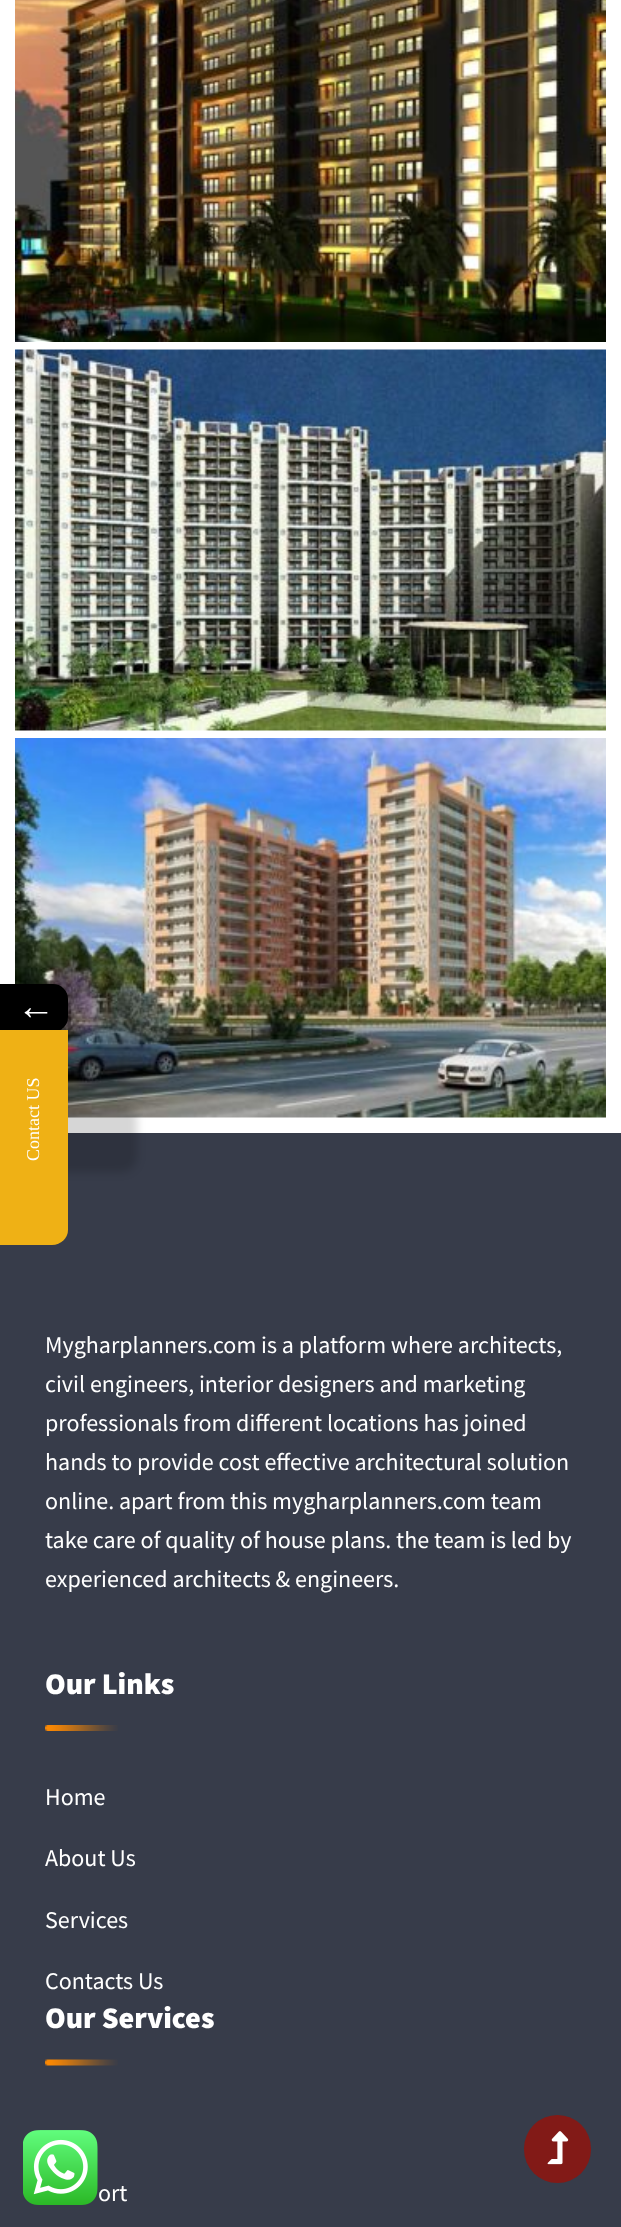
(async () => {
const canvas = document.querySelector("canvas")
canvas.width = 621
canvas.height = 2227
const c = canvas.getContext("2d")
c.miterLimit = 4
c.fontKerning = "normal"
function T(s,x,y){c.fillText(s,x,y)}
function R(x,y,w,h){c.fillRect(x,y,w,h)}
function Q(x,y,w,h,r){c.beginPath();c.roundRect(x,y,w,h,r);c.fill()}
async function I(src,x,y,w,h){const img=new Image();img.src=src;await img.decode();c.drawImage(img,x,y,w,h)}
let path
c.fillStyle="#fff"
R(0,0,621,2227)
await I("1.png",15,0,591,342)
await I("2.png",15,349,591,382)
await I("3.png",15,738,591,380)
c.fillStyle="#00000029"
c.filter="blur(4.5px)"
c.beginPath()
c.roundRect(0,989,68,48,15)
c.fill()
c.filter="none"
c.fillStyle="#000"
c.beginPath()
c.roundRect(0,984,68,48,[0,15,15,0])
c.fill()
c.font="38px Liberation Serif"
c.fillStyle="#fff"
T("←",17,1019)
c.fillStyle="#373c4a"
R(0,1133,621,1094)
c.fillStyle="#00000029"
c.filter="blur(4.5px)"
c.beginPath()
c.roundRect(-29,1104,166,68,15)
c.fill()
c.filter="none"
c.fillStyle="#efb115"
path = new Path2D("M0 1245v-215h68v200c0 8-7 15-16 15z")
c.fill(path)
c.font="18px Liberation Serif"
c.fillStyle="#fff"
c.save()
c.translate(39,1161)
c.rotate(-90 * Math.PI / 180)
c.fillText("Contact US",0,0)
c.restore()
c.font="24px Source Sans Pro"
T("Mygharplanners.com is a platform where architects,",45,1353)
T("civil engineers, interior designers and marketing",45,1392)
T("professionals from different locations has joined",45,1431)
T("hands to provide cost effective architectural solution",45,1470)
T("online. apart from this mygharplanners.com team",45,1509)
T("take care of quality of house plans. the team is led by",45,1548)
T("experienced architects & engineers.",45,1587)
c.font="900 30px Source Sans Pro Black"
T("Our Links",45,1694)
await I("4.png",45,1725,73,6)
c.font="24px Source Sans Pro"
T("Home",45,1805)
T("About Us",45,1866)
T("Services",45,1928)
T("Contacts Us",45,1989)
c.font="900 30px Source Sans Pro Black"
T("Our Services",45,2028)
await I("5.png",45,2059,73,7)
c.font="24px Source Sans Pro"
T("ort",98,2201)
await I("6.png",23,2130,75,75)
c.fillStyle="#821a17"
Q(524,2115,67,68,33.5)
await I("7.png",547,2131,22,34)
})()
